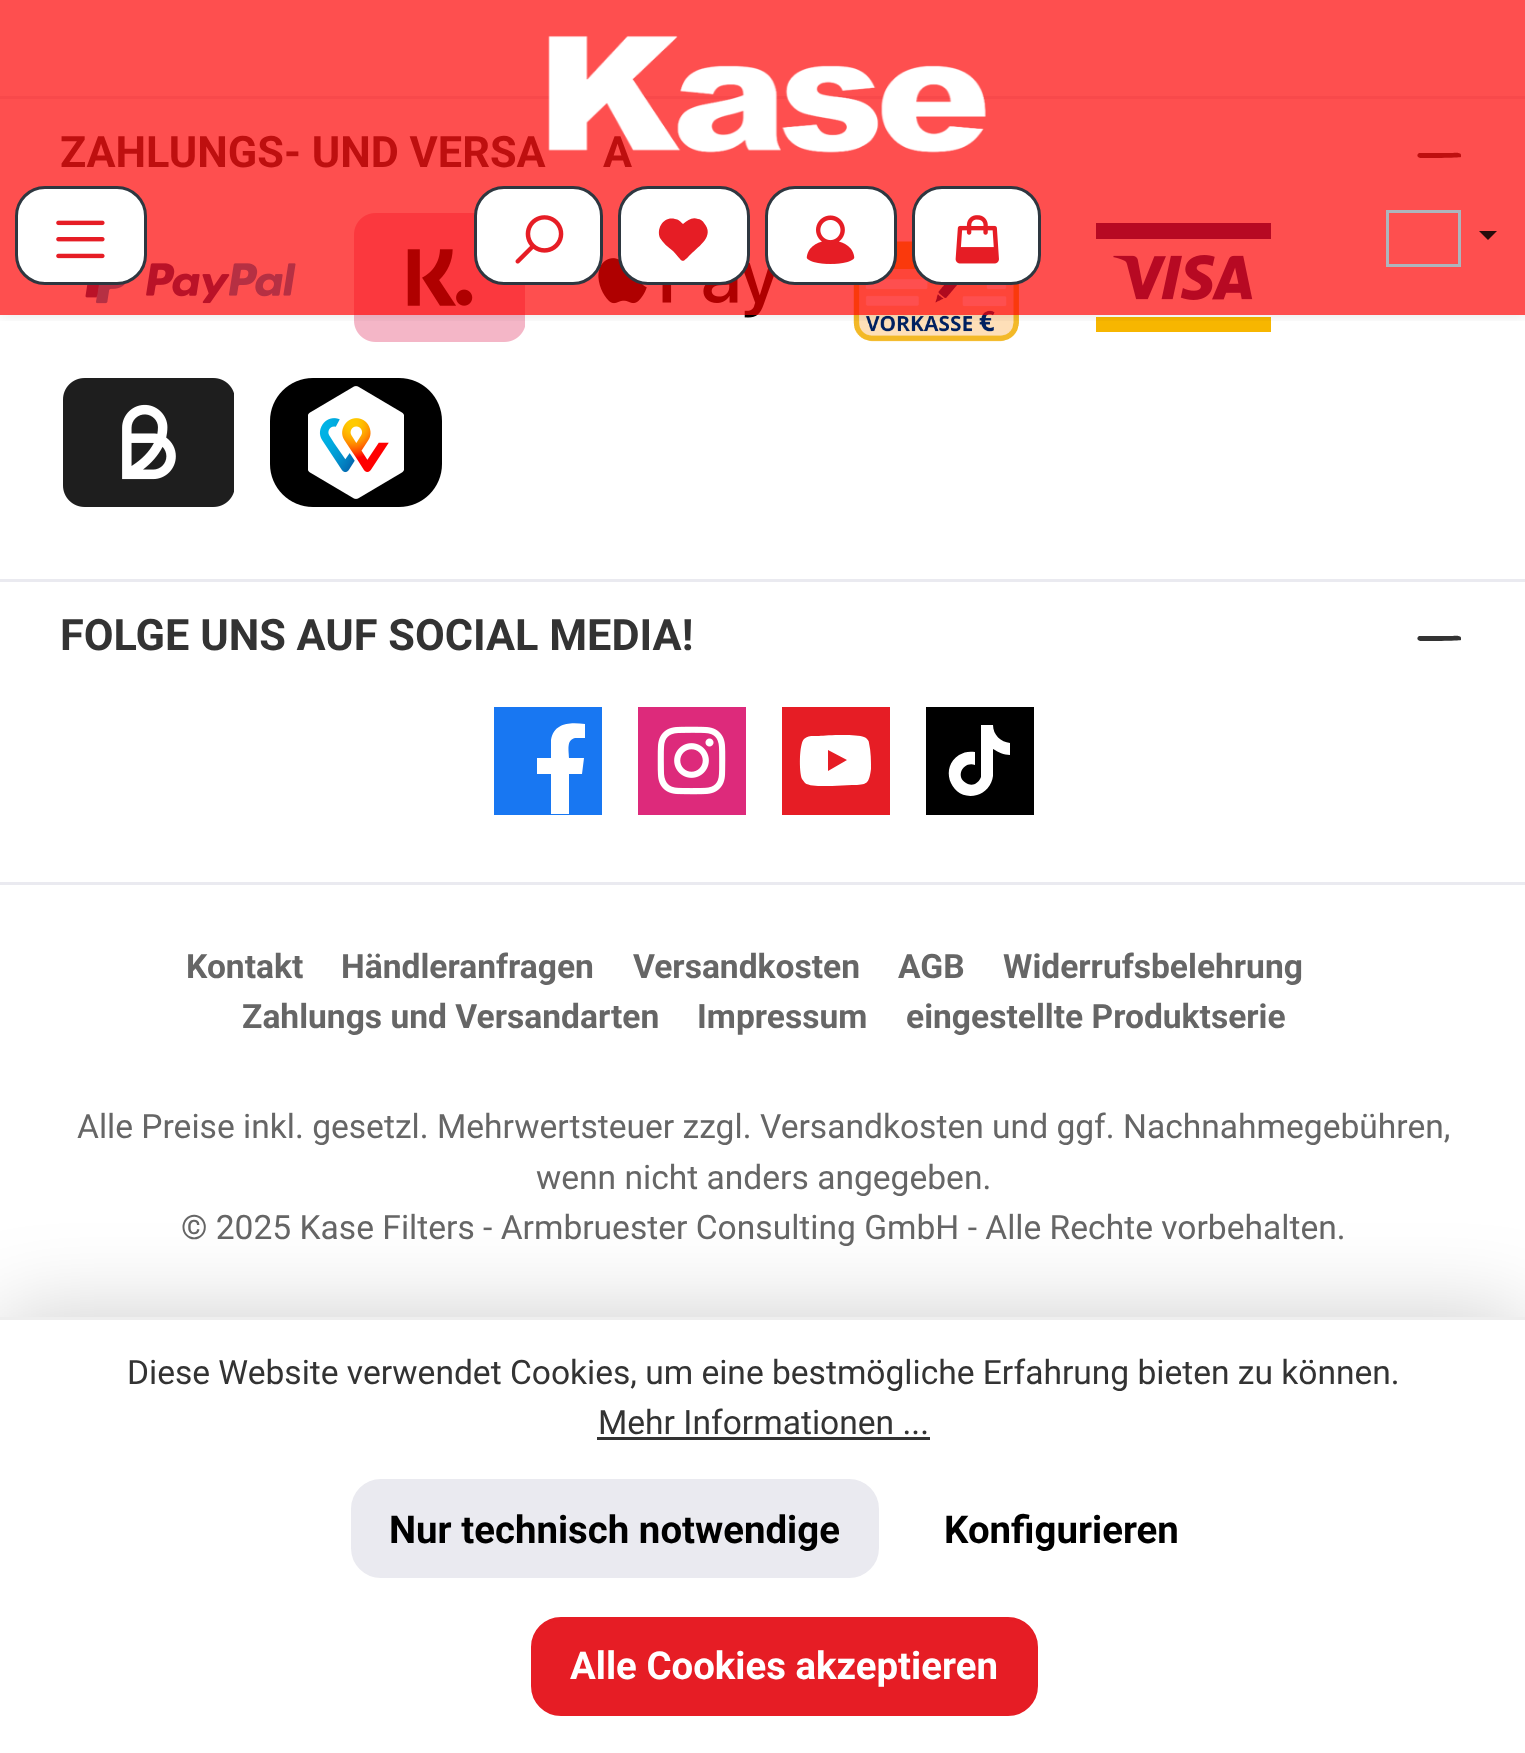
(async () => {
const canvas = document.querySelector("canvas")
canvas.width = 1525
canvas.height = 1753
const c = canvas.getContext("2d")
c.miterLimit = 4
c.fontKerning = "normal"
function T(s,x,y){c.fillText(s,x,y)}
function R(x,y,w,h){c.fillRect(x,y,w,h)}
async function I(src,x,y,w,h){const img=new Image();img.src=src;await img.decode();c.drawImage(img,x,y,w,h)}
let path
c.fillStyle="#fff"
R(0,0,1525,1753)
c.fillStyle="#eaeaf0"
R(0,96,1525,3)
c.fillStyle="#333"
path = new Path2D("M1420 158c4 0 39 0 41-1v-2c0-3-8-2-8-2h-34c-2 1-2 3-1 4z")
c.fill(path,"evenodd")
await I("6.png",85,251,211,53)
await I("7.png",354,213,171,129)
await I("8.png",598,243,181,75)
await I("9.png",853,241,166,101)
await I("10.png",1096,223,175,109)
c.save()
c.beginPath()
c.rect(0,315,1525,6)
c.clip()
c.fillStyle="#0000001a"
c.filter="blur(7.5px)"
c.beginPath()
c.rect(0,0,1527,315)
c.fill()
c.filter="none"
c.restore()
c.font="bold 43.25px Roboto"
T("ZAHLUNGS- UND VERSA",60,167)
T("A",603,167)
c.fillStyle="#fd0000b0"
R(0,0,1525,315)
await I("1.png",548,35,438,118)
c.fillStyle="#fff"
c.beginPath()
c.roundRect(16.5,187.5,129,96,28.5)
c.fill()
c.strokeStyle="#2e3740"
c.lineWidth=3
c.stroke()
await I("2.png",56,220,49,39)
c.beginPath()
c.roundRect(475.5,187.5,126,96,28.5)
c.fill()
c.stroke()
await I("3.png",515,215,49,49)
c.beginPath()
c.roundRect(619.5,187.5,129,96,28.5)
c.fill()
c.stroke()
c.fillStyle="#e61d25"
path = new Path2D("M704 223c-1-2-4-4-6-4c-6-2-10 1-15 5c-2-2-5-5-8-5c-11-3-19 9-15 19c3 5 8 9 13 13c11 12 8 13 18 3c8-8 24-18 13-31z")
c.fill(path)
c.fillStyle="#fff"
c.beginPath()
c.roundRect(766.5,187.5,129,96,28.5)
c.fill()
c.stroke()
await I("4.png",806,215,49,49)
c.beginPath()
c.roundRect(913.5,187.5,126,96,28.5)
c.fill()
c.stroke()
await I("5.png",955,215,44,49)
c.strokeStyle="#adb5bd"
c.strokeRect(1387.5,211.5,72,54)
c.fillStyle="#260c0c"
path = new Path2D("M1479 231h18l-9 9z")
c.fill(path)
c.fillStyle="#eaeaf0"
R(0,579,1525,3)
await I("11.png",63,378,171,129)
await I("12.png",270,378,172,129)
R(0,882,1525,3)
c.fillStyle="#333"
T("FOLGE UNS AUF SOCIAL MEDIA!",60,650)
path = new Path2D("M1420 641c4 0 39 0 41-1v-2c0-3-8-2-8-2h-34c-2 1-2 3-1 4z")
c.fill(path,"evenodd")
c.fillStyle="#1877f2"
R(494,707,108,108)
c.fillStyle="#fff"
path = new Path2D("M582 774l2-16h-15c0-7-3-18 6-20h10v-14c-14-2-31-2-34 16v18h-14v16h14v40h18v-40z")
c.fill(path)
await I("13.png",638,707,108,108)
c.fillStyle="#e61d25"
R(782,707,108,108)
c.fillStyle="#fff"
path = new Path2D("M869 743c0-2-2-5-5-6c-7-3-36-2-45-1c-5 0-11-1-15 3c-5 5-5 33-2 40l3 4c5 4 21 3 27 3l20-1c15 0 17-1 19-16c0-8 0-17-2-26zm-41 28v-21l19 10z")
c.fill(path)
c.fillStyle="#000"
R(926,707,108,108)
c.fillStyle="#fff"
path = new Path2D("M981 725h12c0 10 8 17 17 18v12c-6 0-12-3-17-6v27c-1 9-8 17-16 19c-25 7-39-27-18-40c5-3 10-4 16-3v13c-12-4-20 12-9 18c3 2 6 2 9 1c3-2 5-4 6-7z")
c.fill(path)
c.font="bold 33.6px Roboto"
c.fillStyle="#666"
T("Kontakt",186,978)
T("Händleranfragen",341,978)
T("Versandkosten",633,978)
T("AGB",898,978)
T("Widerrufsbelehrung",1003,978)
T("Zahlungs und Versandarten",242,1028)
T("Impressum",697,1028)
T("eingestellte Produktserie",906,1028)
c.font="33.6px Roboto"
T("Alle Preise inkl. gesetzl. Mehrwertsteuer zzgl.",77,1138)
T("Versandkosten und ggf. Nachnahmegebühren,",760,1138)
T("wenn nicht anders angegeben.",536,1189)
T("© 2025 Kase Filters - Armbruester Consulting GmbH - Alle Rechte vorbehalten.",181,1239)
c.fillStyle="#00000033"
c.filter="blur(45px)"
c.beginPath()
c.rect(0,1317,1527,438)
c.fill()
c.filter="none"
c.fillStyle="#fff"
R(0,1320,1525,433)
c.fillStyle="#eee"
R(0,1317,1525,3)
c.wordSpacing="-0.1px"
c.fillStyle="#333"
T("Diese Website verwendet Cookies, um eine bestmögliche Erfahrung bieten zu können.",127,1384)
c.wordSpacing="0px"
T("Mehr Informationen ...",598,1434)
R(597,1437,333,3)
c.fillStyle="#eaeaf0"
c.beginPath()
c.roundRect(352.5,1480.5,525,96,28.5)
c.fill()
c.strokeStyle="#eaeaf0"
c.stroke()
c.font="bold 38.4px Roboto"
c.fillStyle="#000"
T("Nur technisch notwendige",389,1543)
T("Konfigurieren",944,1543)
c.fillStyle="#e61d25"
c.beginPath()
c.roundRect(532.5,1618.5,504,96,28.5)
c.fill()
c.strokeStyle="#e61d25"
c.stroke()
c.fillStyle="#fff"
T("Alle Cookies akzeptieren",570,1679)
})()
